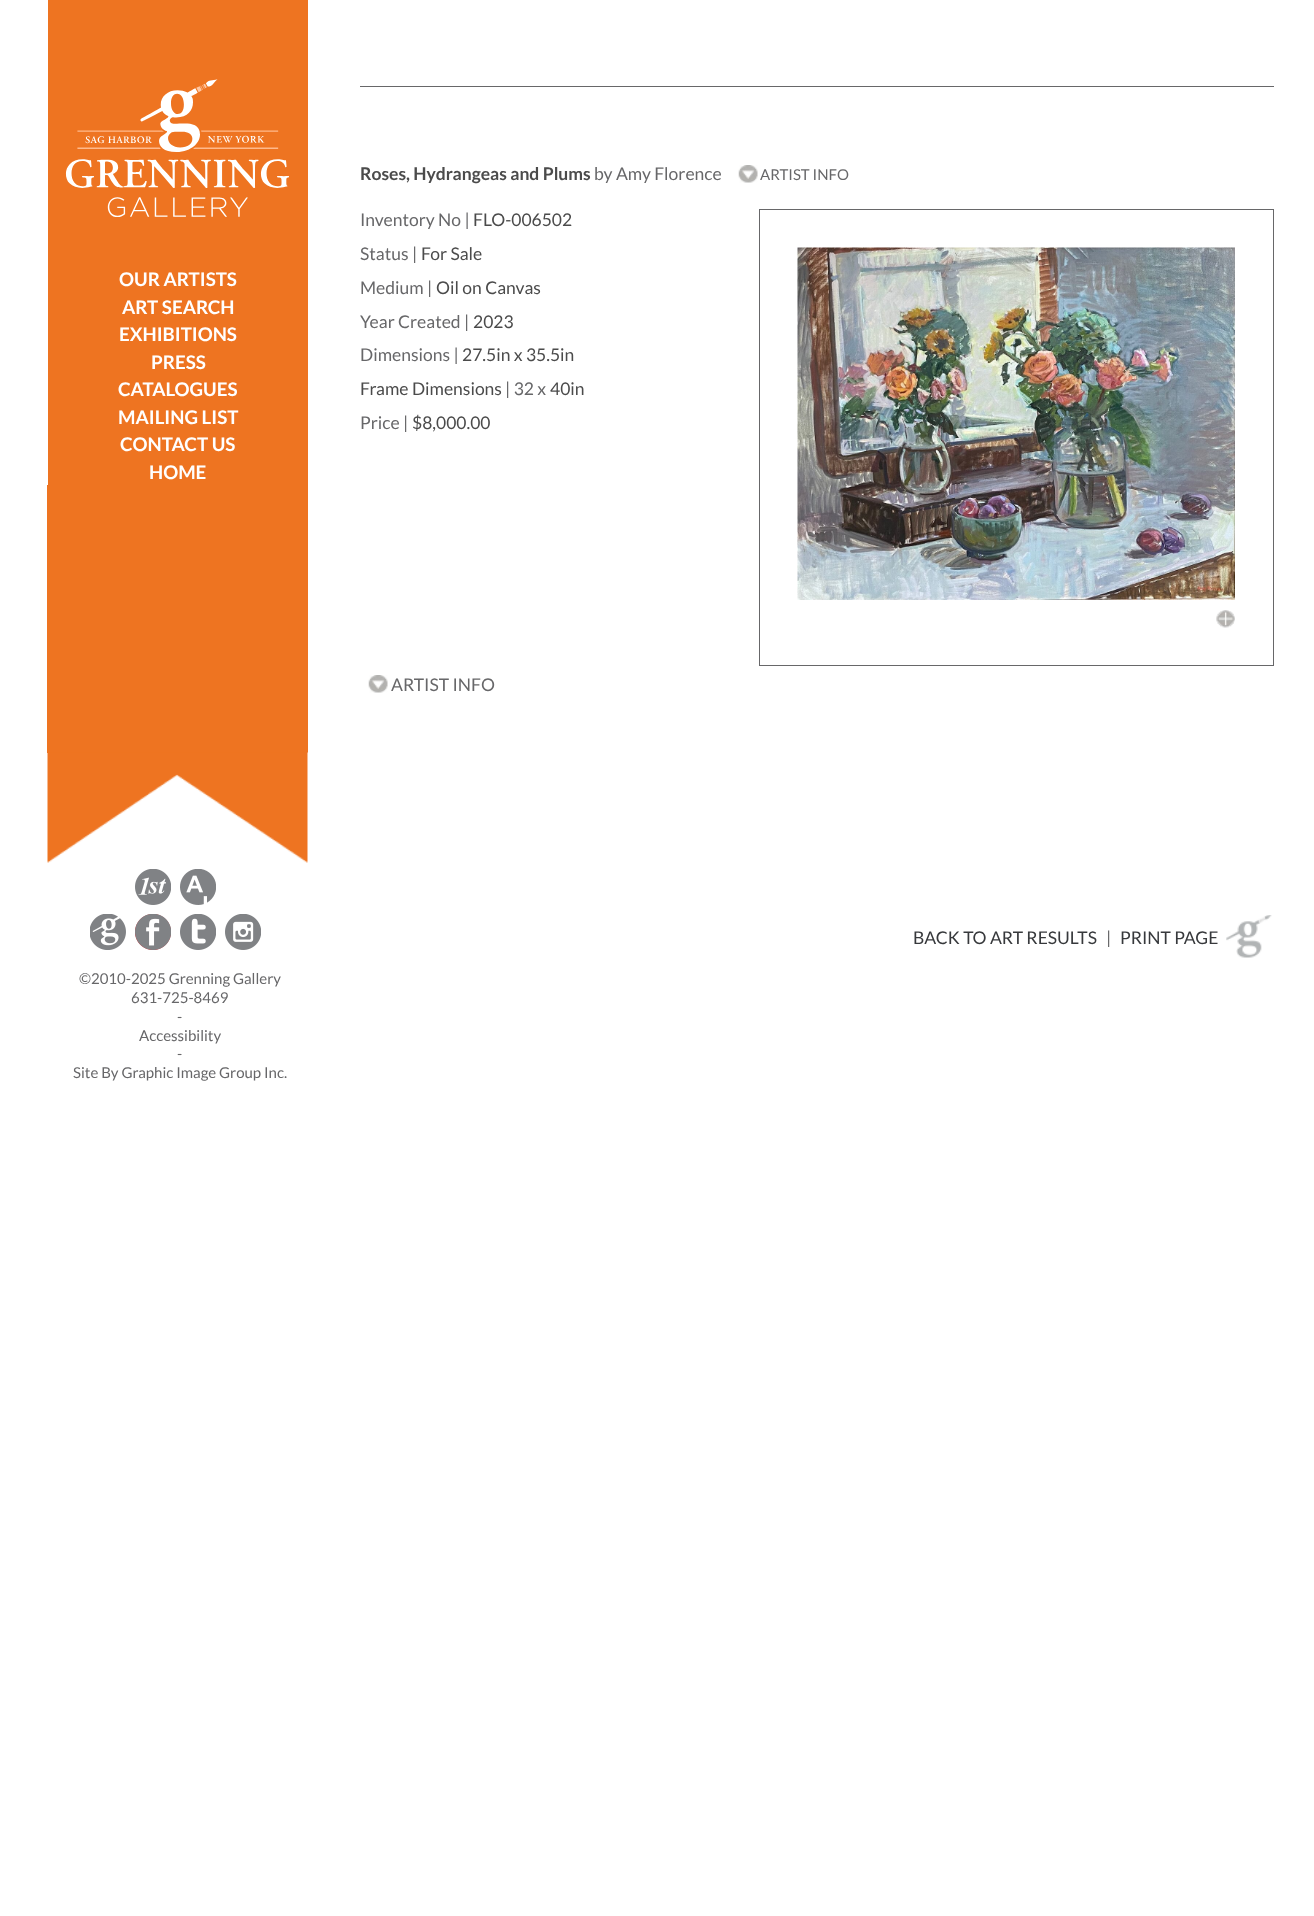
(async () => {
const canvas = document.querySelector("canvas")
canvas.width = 1314
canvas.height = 1916
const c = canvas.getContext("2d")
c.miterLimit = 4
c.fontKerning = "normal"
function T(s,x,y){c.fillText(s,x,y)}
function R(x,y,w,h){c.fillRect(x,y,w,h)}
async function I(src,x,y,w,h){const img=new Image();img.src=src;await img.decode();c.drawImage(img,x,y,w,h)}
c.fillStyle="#fff"
R(0,0,1314,1916)
c.fillStyle="#ee7421"
R(48,0,260,485)
await I("1.png",65,79,224,138)
c.font="bold 18.75px Lato"
c.fillStyle="#fff"
T("OUR ARTISTS",119,286)
T("ART SEARCH",122,314)
T("EXHIBITIONS",119,341)
T("PRESS",151,369)
T("CATALOGUES",118,396)
T("MAILING LIST",118,424)
T("CONTACT US",120,451)
T("HOME",149,479)
c.fillStyle="#ee7421"
R(47,485,261,268)
c.fillStyle="#676769"
R(360,86,914,1)
c.font="bold 17.5px Lato"
c.fillStyle="#4b4b4b"
T("Roses, Hydrangeas and Plums",360,180)
c.font="17.5px Lato"
c.fillStyle="#676769"
T("by Amy Florence",594,180)
await I("2.png",738,165,20,18)
c.font="15px Lato"
T("ARTIST INFO",760,180)
c.font="17.5px Lato"
T("Inventory No |",360,226)
c.fillStyle="#4b4b4b"
T("FLO-006502",473,226)
c.fillStyle="#676769"
T("Status |",360,260)
c.fillStyle="#4b4b4b"
T("For Sale",421,260)
c.fillStyle="#676769"
T("Medium |",360,294)
c.fillStyle="#4b4b4b"
T("Oil on Canvas",436,294)
c.fillStyle="#676769"
T("Year Created |",360,328)
c.fillStyle="#4b4b4b"
T("2023",473,328)
c.fillStyle="#676769"
T("Dimensions |",360,361)
c.fillStyle="#4b4b4b"
T("27.5in x 35.5in",462,361)
T("Frame Dimensions",360,395)
c.fillStyle="#676769"
T("| 32 x",505,395)
c.fillStyle="#4b4b4b"
T("40in",550,395)
c.fillStyle="#676769"
T("Price |",360,429)
c.fillStyle="#4b4b4b"
T("$8,000.00",412,429)
c.strokeStyle="#676769"
c.strokeRect(759.5,209.5,514,456)
await I("3.png",797,247,438,353)
await I("4.png",1216,610,19,18)
await I("2.png",368,675,20,18)
c.fillStyle="#676769"
T("ARTIST INFO",391,691)
await I("5.png",47,752,261,111)
await I("6.png",135,869,36,36)
await I("7.png",180,869,36,36)
await I("8.png",90,914,36,36)
await I("9.png",135,914,36,36)
await I("10.png",180,914,36,36)
await I("11.png",225,914,36,36)
c.fillStyle="#37393c"
T("BACK TO ART RESULTS",913,944)
c.fillStyle="#676769"
T("|",1106,944)
c.fillStyle="#37393c"
T("PRINT PAGE",1120,944)
await I("12.png",1226,915,46,43)
c.font="15px Lato"
c.fillStyle="#676769"
T("©2010-2025 Grenning Gallery",79,984)
T("631-725-8469",131,1003)
T("-",177,1022)
T("Accessibility",139,1041)
T("-",177,1059)
T("Site By Graphic Image Group Inc.",73,1078)
})()
